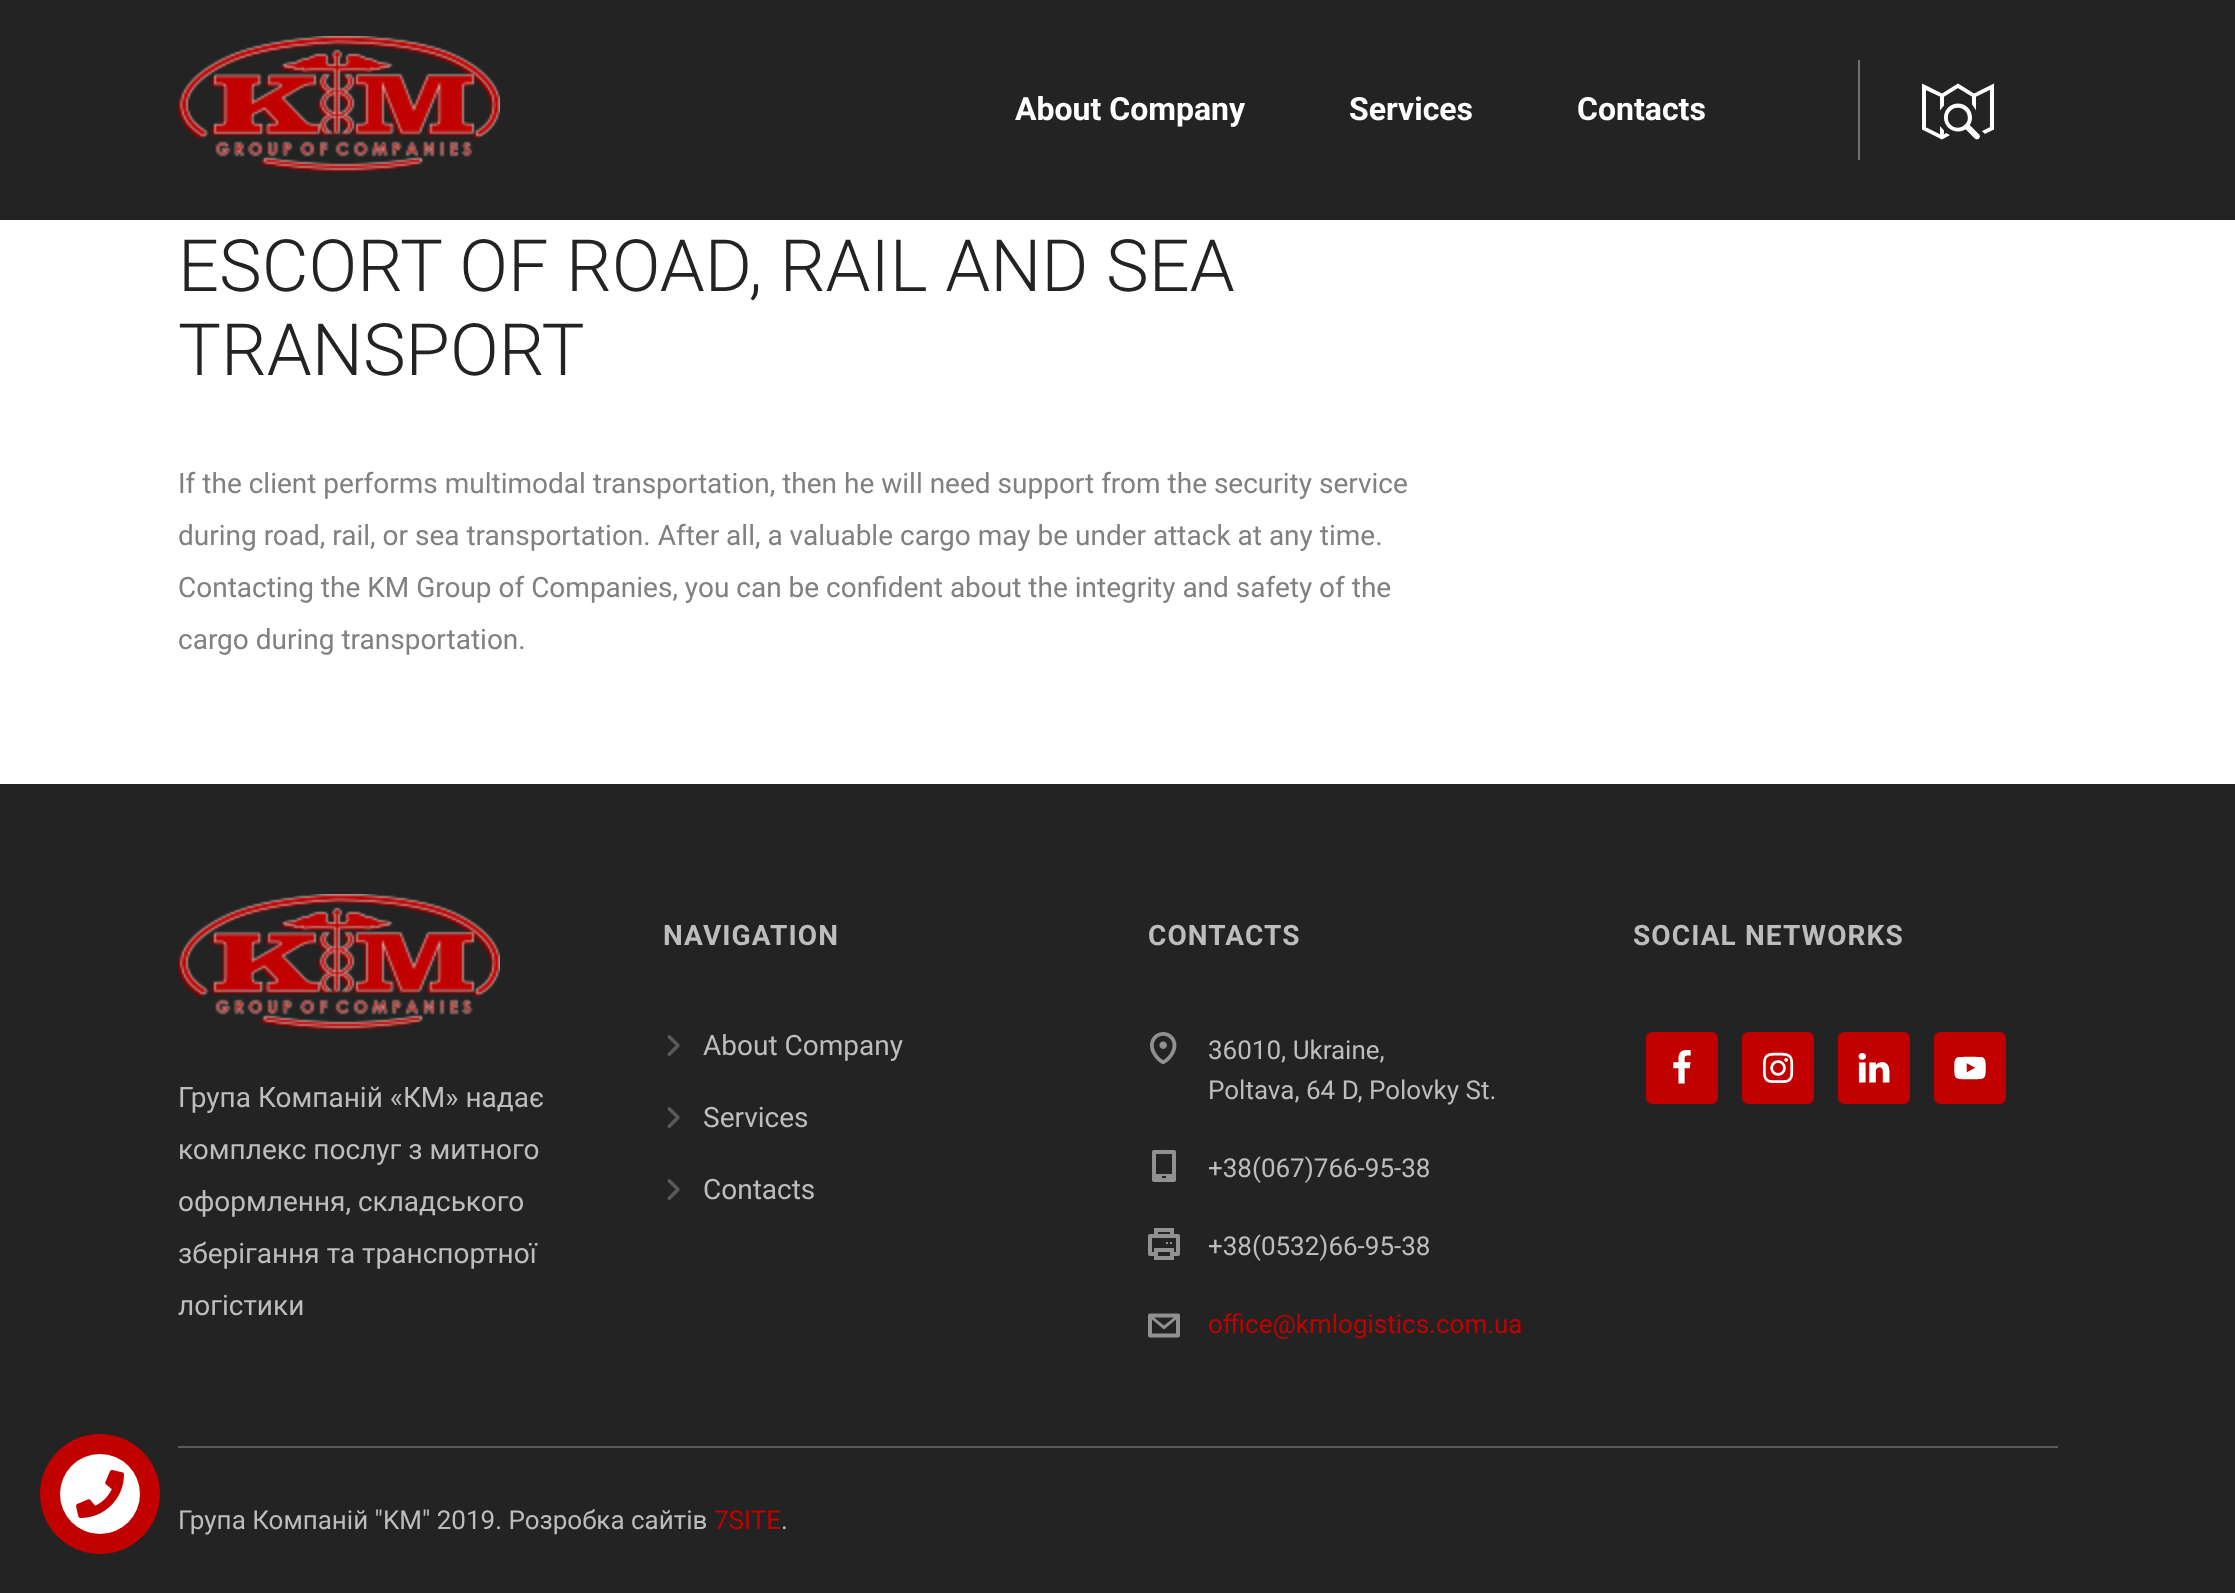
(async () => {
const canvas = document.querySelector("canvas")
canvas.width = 2235
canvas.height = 1593
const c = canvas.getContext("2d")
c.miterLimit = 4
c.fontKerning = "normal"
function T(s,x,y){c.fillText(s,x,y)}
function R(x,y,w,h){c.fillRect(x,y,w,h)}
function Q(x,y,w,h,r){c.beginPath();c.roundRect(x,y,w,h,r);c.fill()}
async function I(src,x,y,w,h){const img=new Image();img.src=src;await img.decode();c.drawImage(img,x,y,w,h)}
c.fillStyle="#fff"
R(0,0,2235,1593)
c.fillStyle="#232323"
R(0,784,2235,809)
c.fillStyle="#c10000"
c.beginPath()
c.arc(100,1494,60,0,7)
c.fill()
c.fillStyle="#fff"
c.beginPath()
c.arc(100,1494,40,0,7)
c.fill()
await I("1.png",76,1470,48,48)
c.fillStyle="#232323"
R(0,0,2235,220)
await I("2.png",178,36,322,136)
c.font="bold 32px Roboto"
c.fillStyle="#fff"
T("About Company",1015,120)
T("Services",1349,120)
T("Contacts",1577,120)
c.fillStyle="#707070"
R(1858,60,2,100)
await I("3.png",1922,83,73,57)
c.font="300 72px Roboto"
c.fillStyle="#232323"
T("ESCORT OF ROAD, RAIL AND SEA",178,291)
T("TRANSPORT",178,375)
c.font="28px Roboto"
c.fillStyle="#808080"
T("If the client performs multimodal transportation, then he will need support from the security service",178,493)
T("during road, rail, or sea transportation. After all, a valuable cargo may be under attack at any time.",178,545)
T("Contacting the KM Group of Companies, you can be confident about the integrity and safety of the",178,597)
T("cargo during transportation.",178,649)
c.letterSpacing="1.1px"
c.font="bold 28px Roboto"
c.fillStyle="#bdbdbd"
T("NAVIGATION",663,945)
await I("4.png",667,1035,13,21)
c.letterSpacing="0px"
c.font="28px Roboto"
T("About Company",703,1055)
await I("4.png",667,1107,13,21)
T("Services",703,1127)
await I("4.png",667,1179,13,21)
T("Contacts",703,1199)
c.letterSpacing="1.1px"
c.font="bold 28px Roboto"
T("CONTACTS",1148,945)
await I("5.png",1150,1032,27,32)
c.letterSpacing="0px"
c.font="26px Roboto"
T("36010, Ukraine,",1208,1059)
T("Poltava, 64 D, Polovky St.",1208,1099)
await I("6.png",1152,1150,24,32)
T("+38(067)766-95-38",1208,1177)
await I("7.png",1148,1228,32,32)
T("+38(0532)66-95-38",1208,1255)
await I("8.png",1148,1313,32,25)
c.fillStyle="#c10000"
T("office@kmlogistics.com.ua",1208,1333)
c.letterSpacing="1.1px"
c.font="bold 28px Roboto"
c.fillStyle="#bdbdbd"
T("SOCIAL NETWORKS",1633,945)
c.fillStyle="#c10000"
Q(1646,1032,72,72,6)
await I("9.png",1673,1050,18,34)
Q(1742,1032,72,72,6)
await I("10.png",1763,1052,31,31)
Q(1838,1032,72,72,6)
await I("11.png",1858,1053,32,30)
Q(1934,1032,72,72,6)
await I("12.png",1954,1056,32,24)
await I("2.png",178,894,322,136)
c.letterSpacing="0px"
c.font="28px Roboto"
c.fillStyle="#bdbdbd"
T("Група Компаній «КМ» надає",178,1107)
T("комплекс послуг з митного",178,1159)
T("оформлення, складського",178,1211)
T("зберігання та транспортної",178,1263)
T("логістики",178,1315)
c.fillStyle="#5a5a5a"
R(178,1446,1880,2)
c.font="26px Roboto"
c.fillStyle="#bdbdbd"
T("Група Компаній \"KM\" 2019. Розробка сайтів",178,1529)
c.fillStyle="#c10000"
T("7SITE",714,1529)
c.fillStyle="#bdbdbd"
T(".",781,1529)
})()
